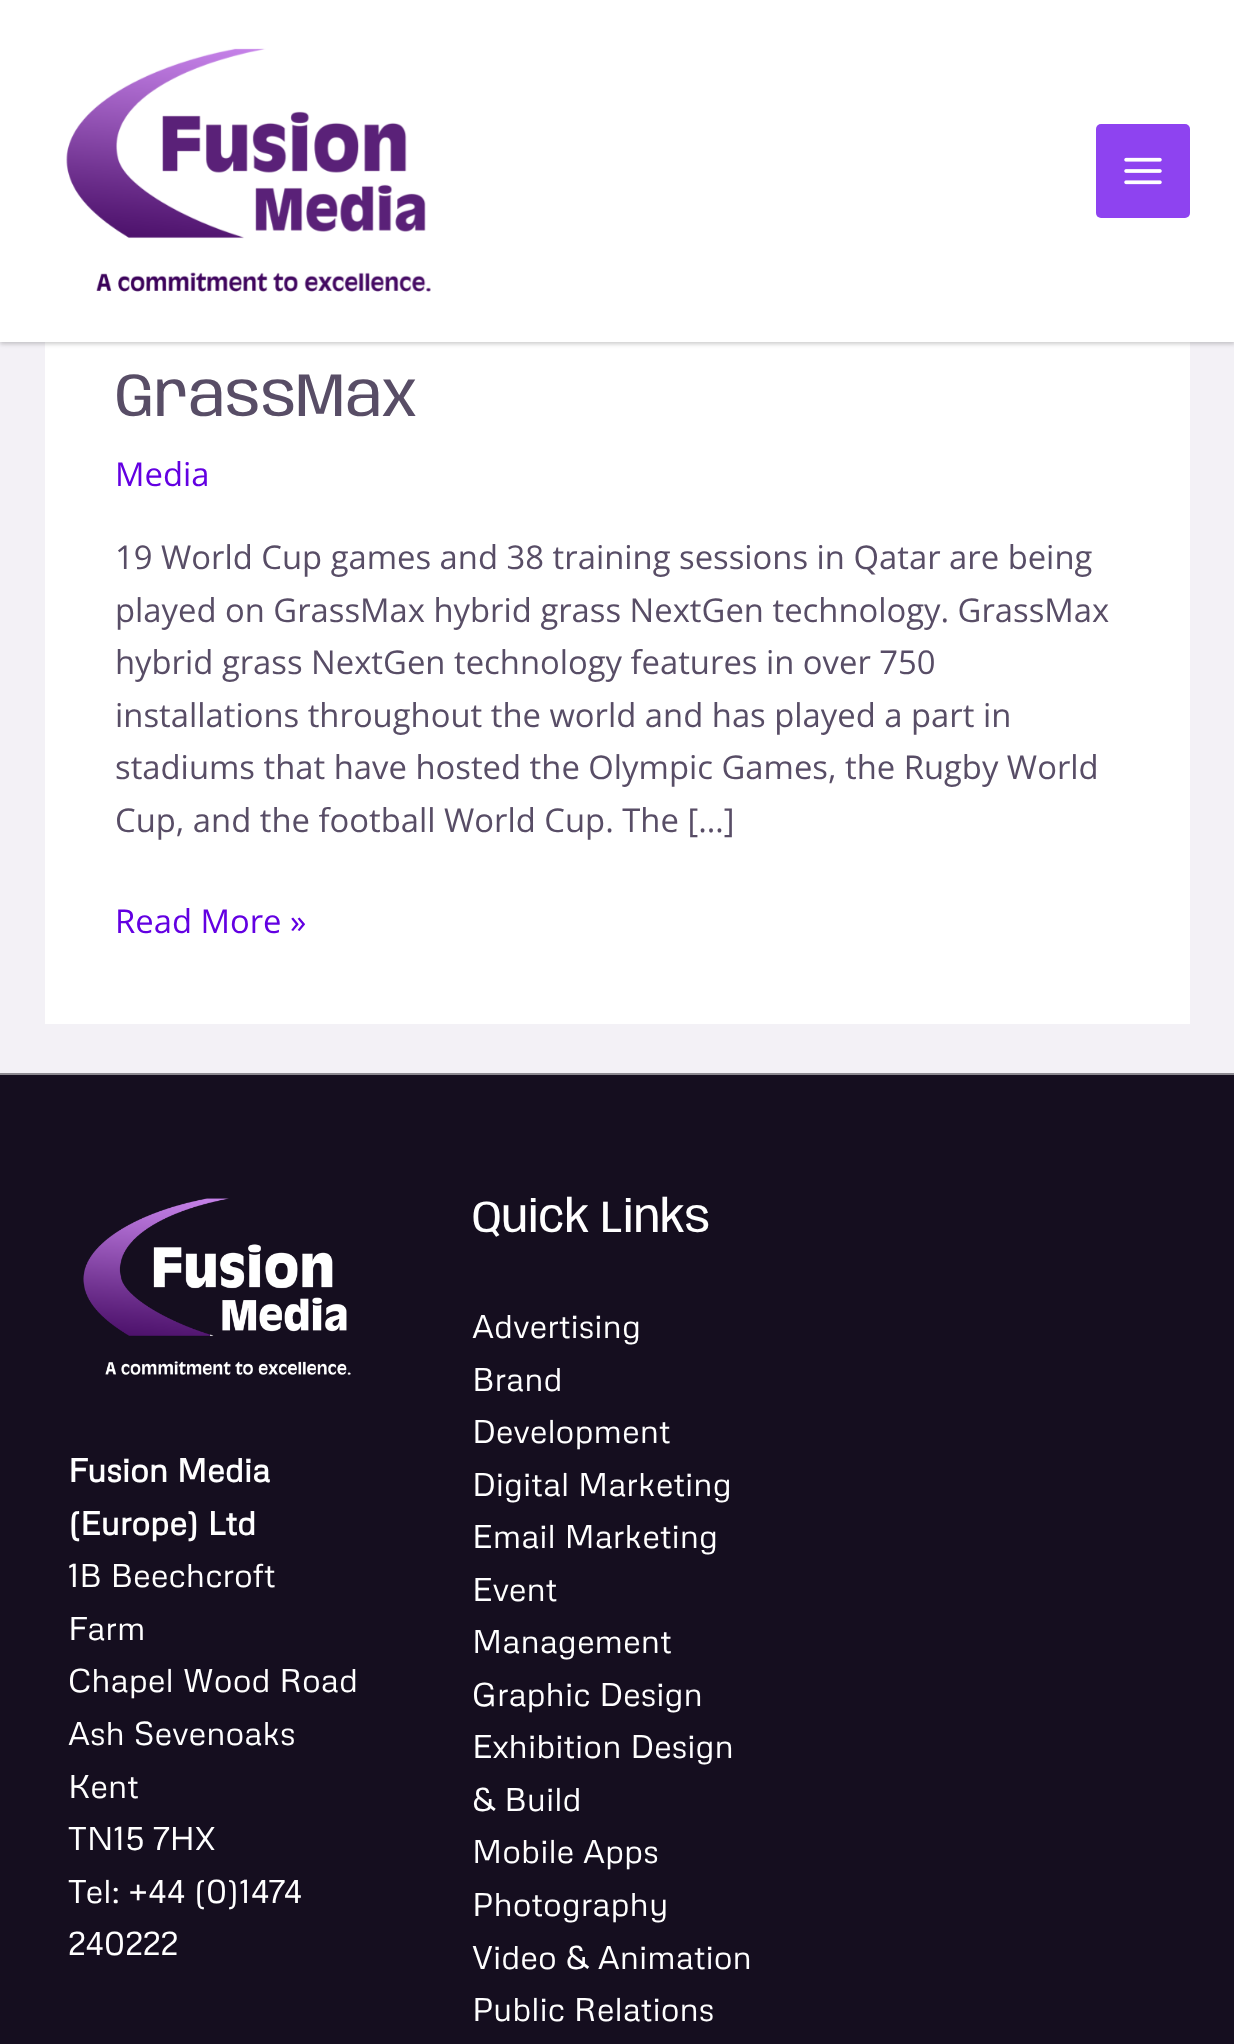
(async () => {
const canvas = document.querySelector("canvas")
canvas.width = 1234
canvas.height = 2044
const c = canvas.getContext("2d")
c.miterLimit = 4
c.fontKerning = "normal"
function T(s,x,y){c.fillText(s,x,y)}
function R(x,y,w,h){c.fillRect(x,y,w,h)}
function Q(x,y,w,h,r){c.beginPath();c.roundRect(x,y,w,h,r);c.fill()}
async function I(src,x,y,w,h){const img=new Image();img.src=src;await img.decode();c.drawImage(img,x,y,w,h)}
c.fillStyle="#f3f1f6"
R(0,0,1234,2044)
c.fillStyle="#fff"
R(45,342,1145,682)
c.fillStyle="#00000033"
c.filter="blur(2px)"
c.beginPath()
c.rect(0,2,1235,342)
c.fill()
c.filter="none"
c.fillStyle="#fff"
R(0,0,1234,342)
await I("1.png",66,48,365,244)
c.fillStyle="#8e43f0"
Q(1096,124,94,94,5)
await I("2.png",1124,157,38,28)
c.font="61.5px Anybody"
c.fillStyle="#584d66"
T("GrassMax",115,416)
c.font="32.8px Open Sans"
c.fillStyle="#6300e2"
T("Media",115,486)
c.fillStyle="#584d66"
T("19 World Cup games and 38 training sessions in Qatar are being",115,569)
T("played on GrassMax hybrid grass NextGen technology. GrassMax",115,622)
T("hybrid grass NextGen technology features in over 750",115,674)
T("installations throughout the world and has played a part in",115,727)
T("stadiums that have hosted the Olympic Games, the Rugby World",115,779)
T("Cup, and the football World Cup. The […]",115,832)
c.fillStyle="#6300e2"
T("Read More »",115,933)
c.fillStyle="#150e1f"
R(0,1075,1234,969)
c.fillStyle="#8c8990"
R(0,1073,1234,2)
await I("3.png",83,1198,268,177)
c.font="bold 32.8px Metrophobic"
c.fillStyle="#fff"
T("Fusion Media",68,1482)
T("(Europe) Ltd",68,1535)
c.font="32.8px Metrophobic"
T("1B Beechcroft",68,1587)
T("Farm",68,1640)
T("Chapel Wood Road",68,1692)
T("Ash Sevenoaks",68,1745)
T("Kent",68,1798)
T("TN15 7HX",68,1850)
T("Tel: +44 (0)1474",68,1903)
T("240222",68,1955)
c.font="45px Anybody"
T("Quick Links",472,1232)
c.font="32.8px Metrophobic"
T("Advertising",472,1338)
T("Brand",472,1391)
T("Development",472,1443)
T("Digital Marketing",472,1496)
T("Email Marketing",472,1548)
T("Event",472,1601)
T("Management",472,1653)
T("Graphic Design",472,1706)
T("Exhibition Design",472,1758)
T("& Build",472,1811)
T("Mobile Apps",472,1863)
T("Photography",472,1916)
T("Video & Animation",472,1969)
T("Public Relations",472,2021)
})()
